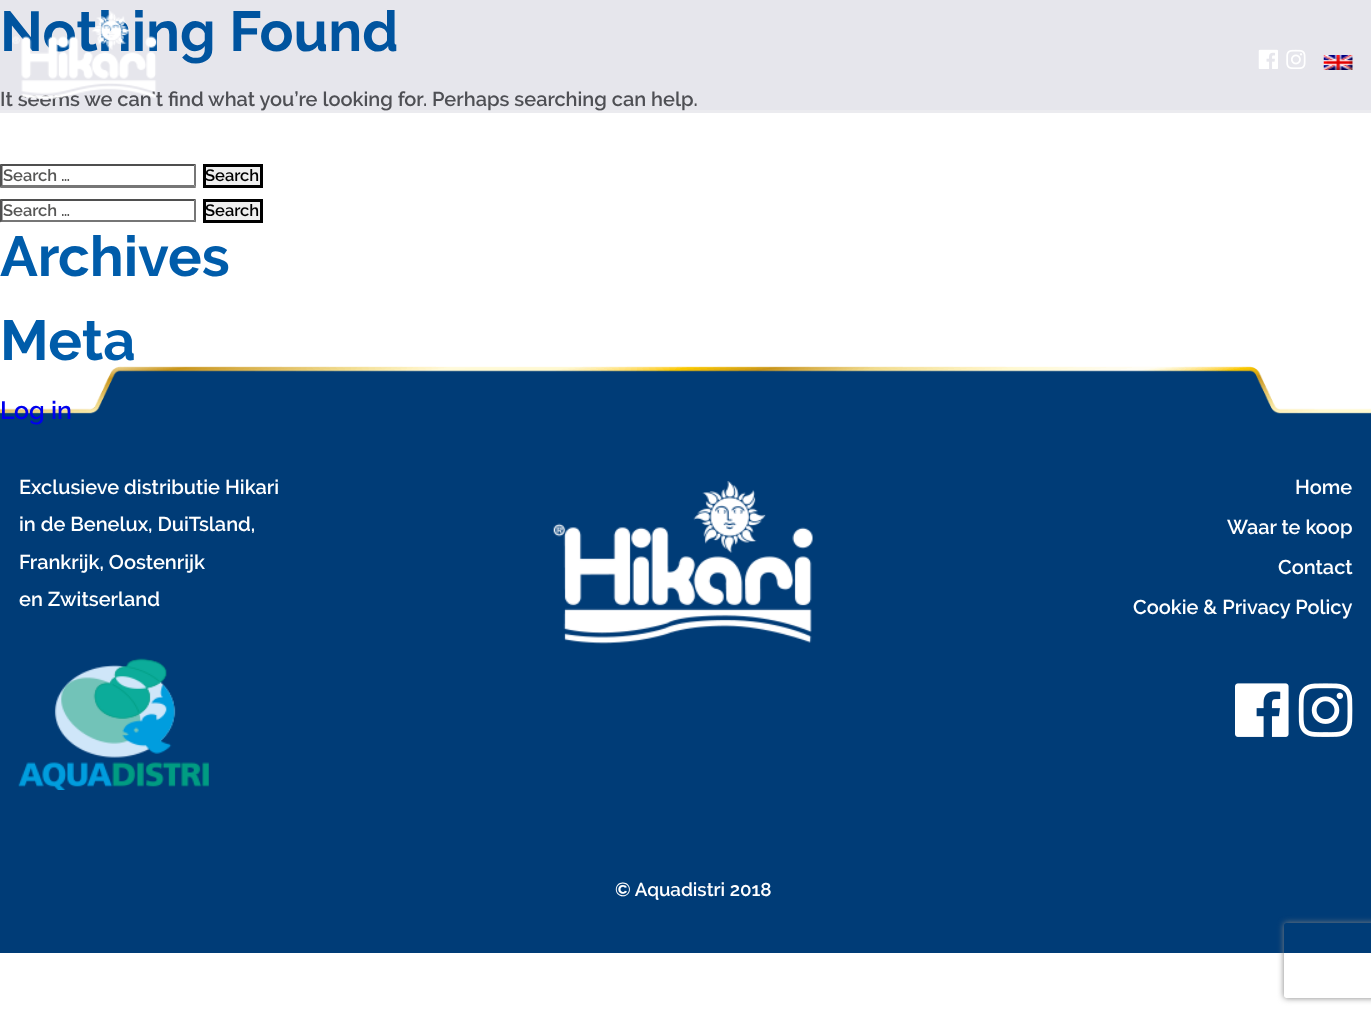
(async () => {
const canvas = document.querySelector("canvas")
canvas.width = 1371
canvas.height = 1015
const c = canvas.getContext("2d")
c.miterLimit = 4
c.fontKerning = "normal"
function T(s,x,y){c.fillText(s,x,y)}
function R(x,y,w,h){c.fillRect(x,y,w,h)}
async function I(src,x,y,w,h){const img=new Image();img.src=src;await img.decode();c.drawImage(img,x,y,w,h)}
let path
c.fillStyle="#fff"
R(0,0,1371,1015)
c.fillStyle="#e6e6ec"
R(0,0,1371,113)
c.font="bold 56.25px Raleway"
c.fillStyle="#00549f"
T("Nothing Found",0,51)
c.font="600 20px Raleway"
c.fillStyle="#4e4f54"
T("It seems we can’t find what you’re looking for. Perhaps searching can help.",0,106)
c.fillStyle="#4f4f4f"
path = new Path2D("M0 164h196l-2 2h-192z")
c.fill(path)
c.fillStyle="#767676"
path = new Path2D("M196 164v23.5l-2-2.5v-19z")
c.fill(path)
path = new Path2D("M196 188h-196l2-3h192z")
c.fill(path)
c.fillStyle="#4f4f4f"
path = new Path2D("M0 187.5v-23.5l2.5 2v19z")
c.fill(path)
c.font="600 16.5px Raleway"
c.fillStyle="#575756"
T("Search …",3,181)
c.fillStyle="#efefef"
c.beginPath()
c.rect(204.5,165.5,57,21)
c.fill()
c.strokeStyle="#000"
c.lineWidth=3
c.stroke()
c.fillStyle="#000"
T("Search",205,181)
c.fillStyle="#ffffff33"
R(0,110,1371,3)
await I("1.png",12,11,145,88)
await I("2.png",1258,49,20,20)
await I("3.png",1286,49,20,20)
await I("4.png",1323,55,30,15)
c.fillStyle="#4f4f4f"
path = new Path2D("M0 199h196l-2 2h-192z")
c.fill(path)
c.fillStyle="#767676"
path = new Path2D("M196 199v23.5l-2-2.5v-19z")
c.fill(path)
path = new Path2D("M196 222h-196l2-2h192z")
c.fill(path)
c.fillStyle="#4f4f4f"
path = new Path2D("M0 222.5v-23.5l2.5 2v19z")
c.fill(path)
c.fillStyle="#575756"
T("Search …",3,216)
c.fillStyle="#efefef"
c.beginPath()
c.rect(204.5,200.5,57,21)
c.fill()
c.stroke()
c.fillStyle="#000"
T("Search",205,216)
c.font="bold 56.25px Raleway"
c.fillStyle="#005caa"
T("Archives",0,276)
T("Meta",0,360)
await I("5.png",0,366,1371,218)
c.font="600 25px Raleway"
c.fillStyle="#00e"
T("Log in",0,419)
c.fillStyle="#003c77"
R(0,584,1371,369)
c.font="600 20px Raleway"
c.fillStyle="#fff"
T("Exclusieve distributie Hikari",19,494)
T("in de Benelux, DuiTsland,",19,531)
T("Frankrijk, Oostenrijk",19,569)
T("en Zwitserland",19,606)
await I("6.png",18,658,191,132)
await I("7.png",553,481,260,163)
T("Home",1295,494)
T("Waar te koop",1227,534)
T("Contact",1278,574)
T("Cookie & Privacy Policy",1133,614)
await I("8.png",1235,683,54,54)
await I("9.png",1298,683,55,54)
c.font="600 18.75px Raleway"
T("© Aquadistri 2018",615,896)
c.save()
path = new Path2D("M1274 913h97v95h-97zm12.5 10h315c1.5 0 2.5 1 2.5 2.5v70c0 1.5-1 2.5-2.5 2.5h-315c-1.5 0-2.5-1-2.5-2.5v-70c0-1.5 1-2.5 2.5-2.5z")
c.clip(path,"evenodd")
c.fillStyle="#808080"
c.filter="blur(3px)"
c.beginPath()
c.roundRect(1284,923,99,75,2.5)
c.fill()
c.filter="none"
c.restore()
})()
